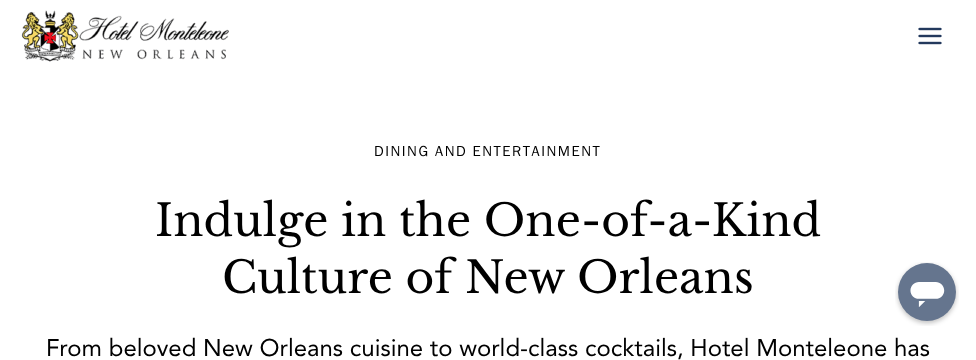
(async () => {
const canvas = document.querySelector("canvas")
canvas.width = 976
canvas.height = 360
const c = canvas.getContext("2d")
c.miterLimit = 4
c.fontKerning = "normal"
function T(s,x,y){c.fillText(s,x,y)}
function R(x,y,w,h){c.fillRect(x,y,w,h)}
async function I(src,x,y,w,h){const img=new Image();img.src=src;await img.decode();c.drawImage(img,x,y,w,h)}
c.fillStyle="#fff"
R(0,0,976,360)
await I("1.png",21,10,208,52)
await I("2.png",918,27,24,18)
c.letterSpacing="1.5px"
c.font="15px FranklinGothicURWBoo"
c.fillStyle="#000"
T("DINING AND ENTERTAINMENT",374,156)
c.letterSpacing="0px"
c.font="44px Libre Baskerville"
T("Indulge in the One-of-a-Kind",155,236)
T("Culture of New Orleans",222,293)
c.font="24px Avenir"
T("From beloved New Orleans cuisine to world-class cocktails, Hotel Monteleone has",46,356)
await I("3.png",895,262,64,64)
})()
